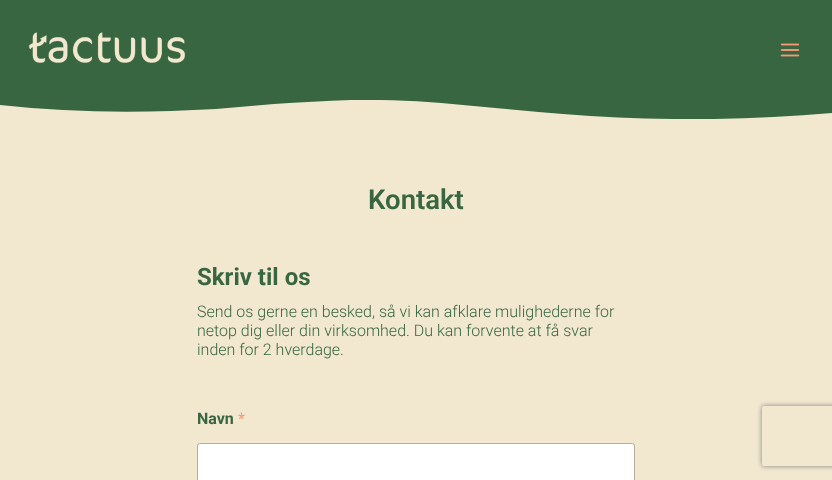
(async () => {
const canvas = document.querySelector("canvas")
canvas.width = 832
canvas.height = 480
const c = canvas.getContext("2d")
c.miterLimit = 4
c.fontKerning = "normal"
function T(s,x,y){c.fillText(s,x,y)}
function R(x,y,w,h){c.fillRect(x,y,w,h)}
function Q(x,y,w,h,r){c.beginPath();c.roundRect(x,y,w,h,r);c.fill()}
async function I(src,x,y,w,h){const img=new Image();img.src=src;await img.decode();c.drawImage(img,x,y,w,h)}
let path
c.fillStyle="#f2e8cf"
R(0,0,832,480)
c.save()
c.beginPath()
c.rect(0,99,832,20)
c.clip()
c.fillStyle="#386641"
path = new Path2D("M351 100c71-2 141 9 212 14c90 7 180 7 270-1v-14h-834v6c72 8 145 8 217 4l58-5c26-2 51-3 77-4z")
c.fill(path)
c.restore()
c.fillStyle="#386641"
R(0,0,832,100)
await I("1.png",29,32,156,31)
await I("2.png",780,43,20,14)
c.font="600 27.5px Roboto"
T("Kontakt",368,209)
c.font="bold 24px Roboto"
T("Skriv til os",197,285)
c.font="300 16px Roboto"
T("Send os gerne en besked, så vi kan afklare mulighederne for",197,317)
T("netop dig eller din virksomhed. Du kan forvente at få svar",197,336)
T("inden for 2 hverdage.",197,355)
c.font="bold 16px Roboto"
T("Navn",197,424)
c.font="16px Roboto"
c.fillStyle="#ff9777"
T("*",238,424)
c.fillStyle="#fff"
Q(198,444,436,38,2)
c.beginPath()
c.roundRect(197.5,443.5,437,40,2.5)
c.strokeStyle="#00000040"
c.stroke()
c.save()
path = new Path2D("M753 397h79v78h-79zm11 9h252c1 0 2 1 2 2v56c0 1-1 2-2 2h-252c-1 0-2-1-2-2v-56c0-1 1-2 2-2z")
c.clip(path,"evenodd")
c.fillStyle="#808080"
c.filter="blur(2.5px)"
c.beginPath()
c.roundRect(762,406,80,60,2)
c.fill()
c.filter="none"
c.restore()
})()
